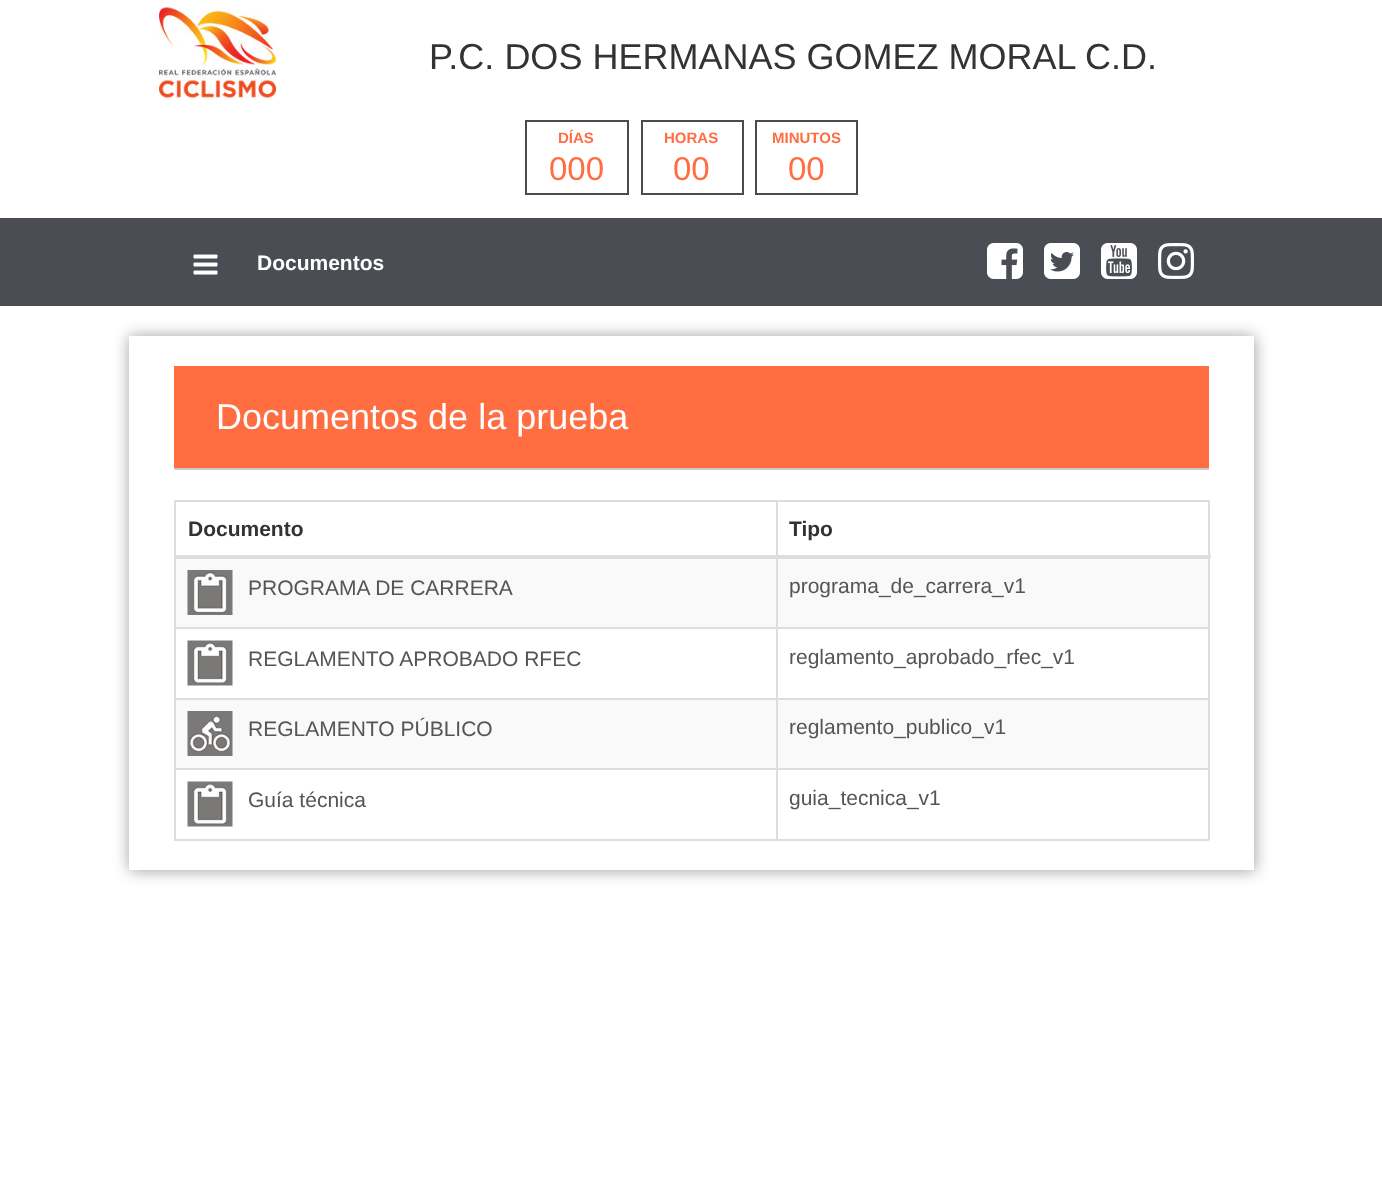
(async () => {
const canvas = document.querySelector("canvas")
canvas.width = 1382
canvas.height = 1182
const c = canvas.getContext("2d")
c.miterLimit = 4
c.fontKerning = "normal"
function T(s,x,y){c.fillText(s,x,y)}
function R(x,y,w,h){c.fillRect(x,y,w,h)}
async function I(src,x,y,w,h){const img=new Image();img.src=src;await img.decode();c.drawImage(img,x,y,w,h)}
let path
c.fillStyle="#fff"
R(0,0,1382,1182)
await I("1.png",159,7,117,91)
c.font="36px Liberation Sans"
c.fillStyle="#333"
T("P.C. DOS HERMANAS GOMEZ MORAL C.D.",429,69)
c.strokeStyle="#4b4b4b"
c.lineWidth=2
c.strokeRect(526,121,102,73)
c.font="bold 15px Liberation Sans"
c.fillStyle="#ff6d40"
T("DÍAS",558,143)
c.font="33px Liberation Sans"
T("000",549,180)
c.strokeRect(642,121,101,73)
c.font="bold 15px Liberation Sans"
T("HORAS",664,143)
c.font="33px Liberation Sans"
T("00",673,180)
c.strokeRect(756,121,101,73)
c.font="bold 15px Liberation Sans"
T("MINUTOS",772,143)
c.font="33px Liberation Sans"
T("00",788,180)
c.fillStyle="#4a4d53"
R(0,218,1382,88)
await I("2.png",193,254,25,21)
c.font="bold 21px Liberation Sans"
c.fillStyle="#fff"
T("Documentos",257,270)
await I("3.png",987,243,36,36)
await I("4.png",1044,243,36,36)
await I("5.png",1101,243,36,36)
await I("6.png",1158,243,36,36)
c.save()
path = new Path2D("M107 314h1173v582h-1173zm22 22h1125v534h-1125z")
c.clip(path,"evenodd")
c.fillStyle="#00000033"
c.filter="blur(7.5px)"
c.beginPath()
c.rect(131,338,1125,534)
c.fill()
c.filter="none"
c.restore()
c.save()
path = new Path2D("M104 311h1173v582h-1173zm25 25h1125v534h-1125z")
c.clip(path,"evenodd")
c.fillStyle="#00000033"
c.filter="blur(7.5px)"
c.beginPath()
c.rect(128,335,1125,534)
c.fill()
c.filter="none"
c.restore()
c.fillStyle="#ff6d40"
R(174,366,1035,102)
c.fillStyle="#ccc"
R(174,468,1035,2)
c.font="36px Liberation Sans"
c.fillStyle="#fff"
T("Documentos de la prueba",216,429)
c.fillStyle="#ddd"
R(174,500,1035,2)
R(1208,500,2,340)
R(174,839,1035,2)
R(174,500,2,340)
c.font="bold 21px Liberation Sans"
c.fillStyle="#333"
T("Documento",188,536)
c.fillStyle="#f9f9f9"
R(176,559,1032,68)
c.fillStyle="#ddd"
R(776,558,433,1)
R(776,627,433,2)
R(776,698,433,2)
c.fillStyle="#f9f9f9"
R(176,700,1032,68)
c.fillStyle="#ddd"
R(776,768,433,2)
R(776,768,2,72)
R(174,768,603,2)
R(776,698,2,72)
R(174,698,603,2)
R(776,627,2,72)
R(174,627,603,2)
R(776,500,2,129)
R(174,555,1037,3)
c.fillStyle="#333"
T("Tipo",789,536)
c.fillStyle="#ddd"
R(174,558,603,1)
await I("7.png",187,570,46,45)
c.font="21px Liberation Sans"
c.fillStyle="#555"
T("PROGRAMA DE CARRERA",248,595)
T("programa_de_carrera_v1",789,593)
await I("8.png",187,640,46,46)
T("REGLAMENTO APROBADO RFEC",248,666)
T("reglamento_aprobado_rfec_v1",789,664)
await I("9.png",187,711,46,45)
T("REGLAMENTO PÚBLICO",248,736)
T("reglamento_publico_v1",789,734)
await I("8.png",187,781,46,46)
T("Guía técnica",248,807)
T("guia_tecnica_v1",789,805)
})()
